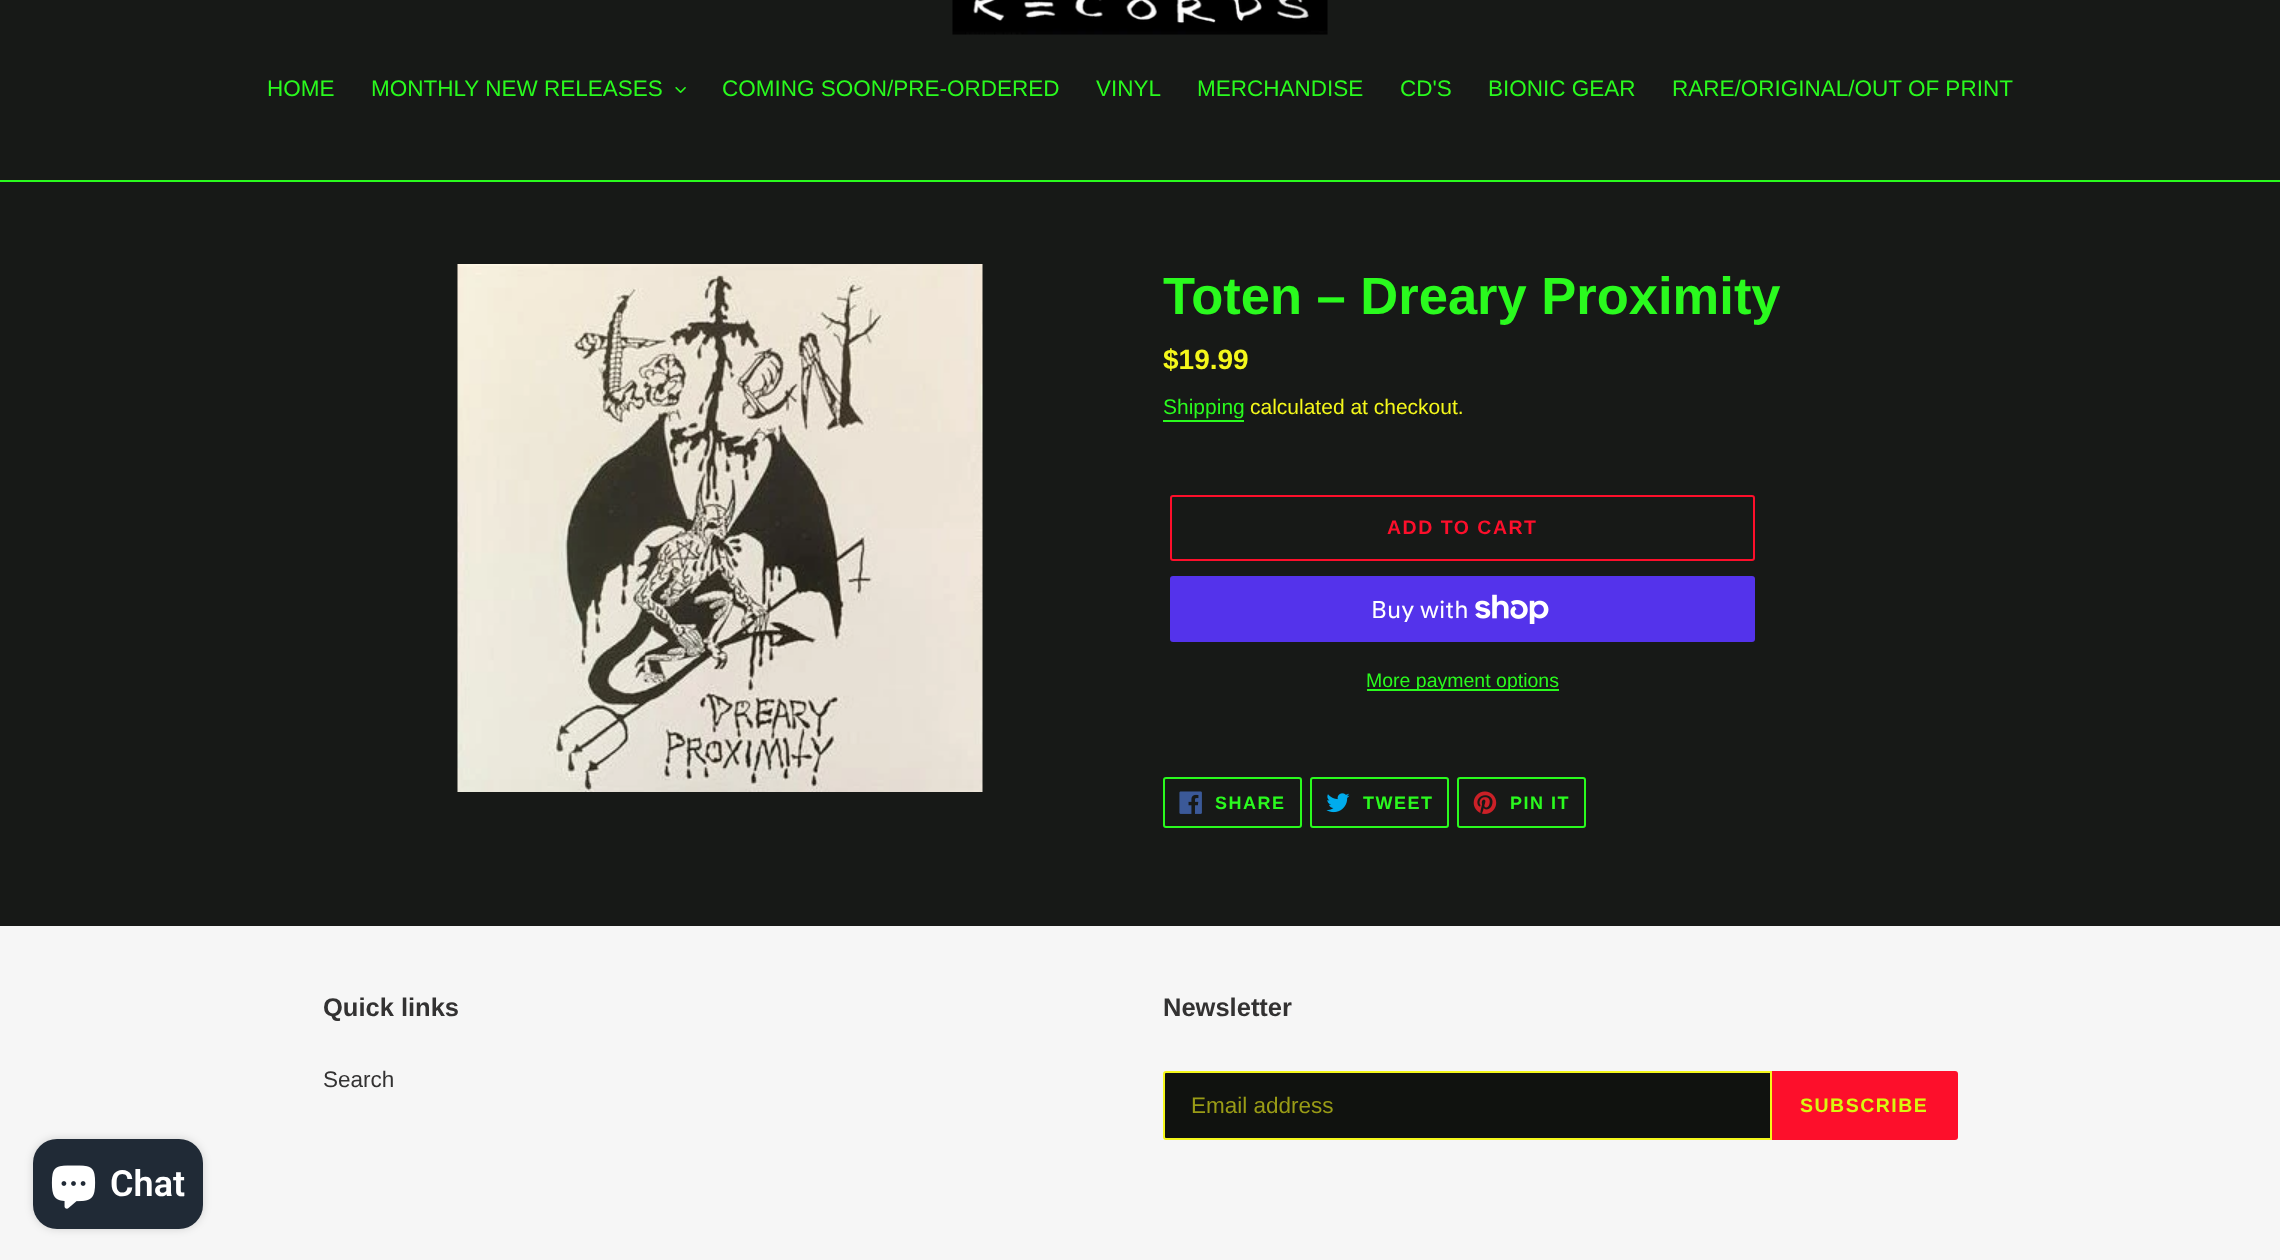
(async () => {
const canvas = document.querySelector("canvas")
canvas.width = 2280
canvas.height = 1260
const c = canvas.getContext("2d")
c.miterLimit = 4
c.fontKerning = "normal"
function T(s,x,y){c.fillText(s,x,y)}
function R(x,y,w,h){c.fillRect(x,y,w,h)}
function Q(x,y,w,h,r){c.beginPath();c.roundRect(x,y,w,h,r);c.fill()}
async function I(src,x,y,w,h){const img=new Image();img.src=src;await img.decode();c.drawImage(img,x,y,w,h)}
c.fillStyle="#171917"
R(0,0,2280,1260)
await I("1.png",952,0,376,35)
c.fillStyle="#2afa1e"
R(0,180,2280,2)
c.font="22.5px Liberation Sans"
T("HOME",267,96)
T("MONTHLY NEW RELEASES",371,96)
await I("2.png",675,87,11,6)
T("COMING SOON/PRE-ORDERED",722,96)
T("VINYL",1096,96)
T("MERCHANDISE",1197,96)
T("CD'S",1400,96)
T("BIONIC GEAR",1488,96)
T("RARE/ORIGINAL/OUT OF PRINT",1672,96)
await I("3.png",457,264,526,528)
c.font="bold 52.5px Liberation Sans"
T("Toten – Dreary Proximity",1163,314)
c.font="bold 28px Liberation Sans"
c.fillStyle="#f4f71b"
T("$19.99",1163,369)
c.font="21px Liberation Sans"
c.fillStyle="#2afa1e"
T("Shipping",1163,414)
R(1163,420,81,2)
c.fillStyle="#f4f71b"
T("calculated at checkout.",1250,414)
c.beginPath()
c.roundRect(1171,496,583,64,2)
c.strokeStyle="#fd0f2b"
c.lineWidth=2
c.stroke()
c.letterSpacing="1.5px"
c.font="bold 19.5px Liberation Sans"
c.fillStyle="#fd0f2b"
T("ADD TO CART",1387,534)
c.fillStyle="#5433eb"
Q(1170,576,585,66,3)
c.letterSpacing="0px"
c.font="24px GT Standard"
c.fillStyle="#fff"
T("Buy with",1371,618)
await I("4.png",1475,594,74,30)
c.fillStyle="#2afa1e"
R(1367,689,192,2)
c.font="19.5px Liberation Sans"
T("More payment options",1366,687)
c.beginPath()
c.roundRect(1164,778,137,49,2)
c.strokeStyle="#2afa1e"
c.stroke()
await I("5.png",1179,791,23,23)
c.letterSpacing="1.5px"
c.font="bold 18px Liberation Sans"
T("SHARE",1215,809)
c.beginPath()
c.roundRect(1311,778,137,49,2)
c.stroke()
await I("6.png",1326,793,24,20)
T("TWEET",1363,809)
c.beginPath()
c.roundRect(1458,778,127,49,2)
c.stroke()
await I("7.png",1473,791,24,23)
T("PIN IT",1510,809)
c.fillStyle="#f6f6f6"
R(0,926,2280,334)
c.letterSpacing="0px"
c.font="bold 25.5px Liberation Sans"
c.fillStyle="#333232"
T("Quick links",323,1016)
c.font="22.5px Liberation Sans"
T("Search",323,1087)
c.font="bold 25.5px Liberation Sans"
T("Newsletter",1163,1016)
c.fillStyle="#10120f"
c.beginPath()
c.roundRect(1164,1072,607,67,[2,0,0,2])
c.fill()
c.strokeStyle="#f4f71b"
c.stroke()
c.font="22.5px Liberation Sans"
c.fillStyle="#999b16"
T("Email address",1191,1113)
c.fillStyle="#fd0f2b"
c.beginPath()
c.roundRect(1772,1071,186,69,[0,3,3,0])
c.fill()
c.letterSpacing="1.5px"
c.font="bold 19.5px Liberation Sans"
c.fillStyle="#d9f710"
T("SUBSCRIBE",1800,1112)
c.fillStyle="#00000026"
c.filter="blur(4px)"
c.beginPath()
c.roundRect(33,1139,170,90,24)
c.fill()
c.filter="none"
c.fillStyle="#202a36"
Q(33,1139,170,90,24)
await I("8.png",51,1165,45,44)
c.letterSpacing="0px"
c.font="600 36px Roboto"
c.fillStyle="#fff"
T("Chat",110,1196)
})()
